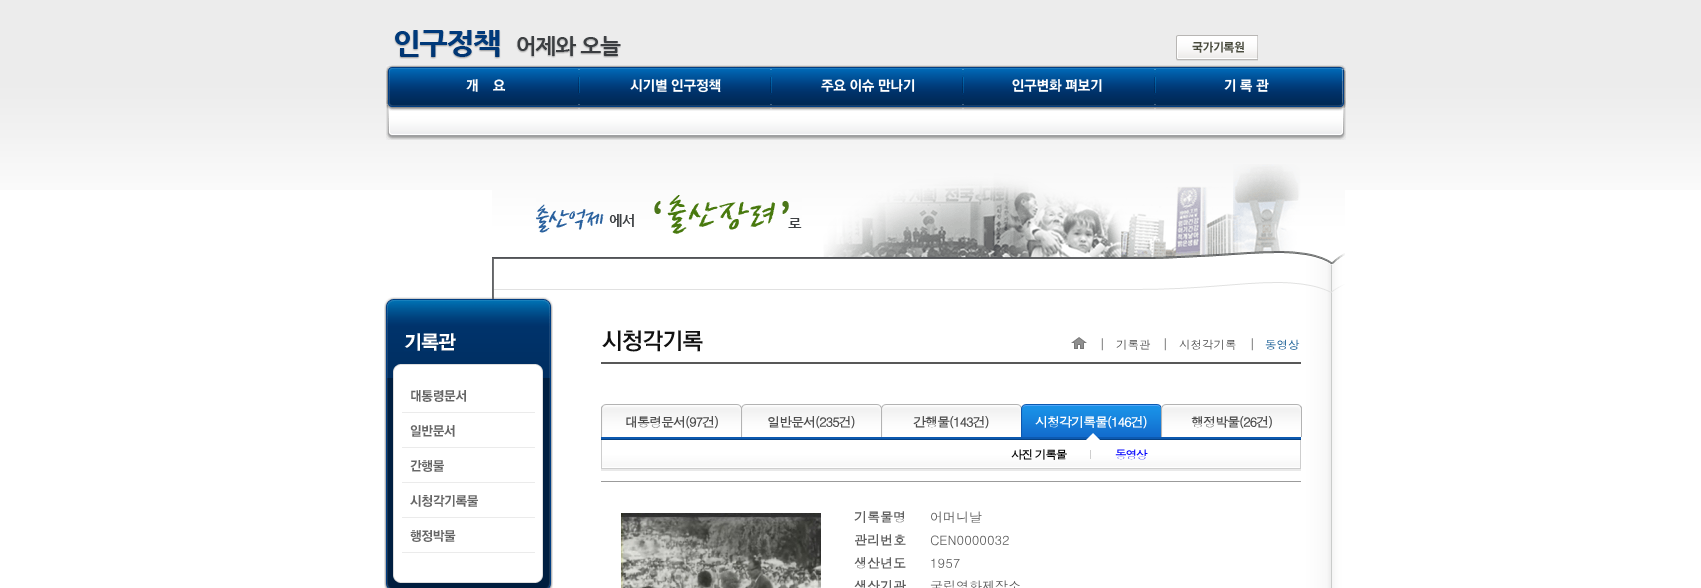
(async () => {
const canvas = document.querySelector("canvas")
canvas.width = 1701
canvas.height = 588
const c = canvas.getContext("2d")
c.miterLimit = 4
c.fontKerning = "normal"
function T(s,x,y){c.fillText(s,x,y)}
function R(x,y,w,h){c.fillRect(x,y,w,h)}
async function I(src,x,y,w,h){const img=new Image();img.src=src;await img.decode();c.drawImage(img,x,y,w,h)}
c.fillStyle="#fff"
R(0,0,1701,588)
await I("1.png",0,0,1701,190)
await I("2.png",386,65,960,75)
await I("3.png",394,30,227,29)
await I("4.png",1176,35,82,26)
await I("5.png",388,67,190,44)
await I("6.png",580,68,190,43)
await I("7.png",772,68,190,43)
await I("8.png",964,68,190,43)
await I("9.png",1156,67,186,44)
await I("10.png",492,164,853,424)
await I("11.png",536,195,266,39)
await I("12.png",384,378,169,210)
await I("13.png",384,297,169,81)
await I("14.png",404,333,52,18)
c.fillStyle="#ebebeb"
R(402,412,133,1)
await I("15.png",411,390,55,12)
R(402,447,133,1)
await I("16.png",410,425,45,12)
R(402,482,133,1)
await I("17.png",410,460,34,12)
R(402,517,133,1)
await I("18.png",410,495,68,12)
R(402,552,133,1)
await I("19.png",410,530,46,12)
await I("20.png",602,330,101,22)
c.fillStyle="#585858"
R(601,362,700,2)
await I("21.png",1071,337,16,12)
c.font="13px Dotum"
c.fillStyle="#5a5a5a"
T("|",1099,349)
c.font="11.5px Dotum"
c.fillStyle="#4d4d4d"
T("기록관",1116,349)
c.font="13px Dotum"
c.fillStyle="#5a5a5a"
T("|",1162,349)
c.font="11.5px Dotum"
c.fillStyle="#4d4d4d"
T("시청각기록",1179,349)
c.font="13px Dotum"
c.fillStyle="#5a5a5a"
T("|",1249,349)
c.font="11.5px Dotum"
c.fillStyle="#004e8b"
T("동영상",1265,349)
await I("22.png",601,437,700,34)
await I("23.png",601,404,141,33)
c.letterSpacing="-1px"
c.font="bold 13px Dotum"
c.fillStyle="#4d4d4d"
T("대통령문서(97건)",625,427)
await I("24.png",742,404,140,33)
T("일반문서(235건)",767,427)
await I("25.png",882,404,139,33)
T("간행물(143건)",913,427)
await I("26.png",1021,404,141,36)
c.fillStyle="#fff"
T("시청각기록물(146건)",1035,427)
c.font="bold 11.5px Dotum"
c.fillStyle="#000"
T("사진 기록물",1011,459)
c.fillStyle="#cecece"
R(1090,450,1,9)
c.fillStyle="#00f"
T("동영상",1115,459)
await I("23.png",1161,404,141,33)
c.font="bold 13px Dotum"
c.fillStyle="#4d4d4d"
T("행정박물(26건)",1191,427)
c.fillStyle="#9b9b9b"
R(601,481,700,1)
await I("27.png",621,513,200,75)
c.letterSpacing="0px"
c.fillStyle="#5a5a5a"
T("기록물명",854,522)
c.font="13px Dotum"
T("어머니날",930,522)
c.font="bold 13px Dotum"
T("관리번호",854,545)
c.font="13px Dotum"
T("CEN0000032",930,545)
c.font="bold 13px Dotum"
T("생산년도",854,568)
c.font="13px Dotum"
T("1957",930,568)
c.font="bold 13px Dotum"
T("생산기관",854,591)
c.font="13px Dotum"
T("국립영화제작소",930,591)
})()
